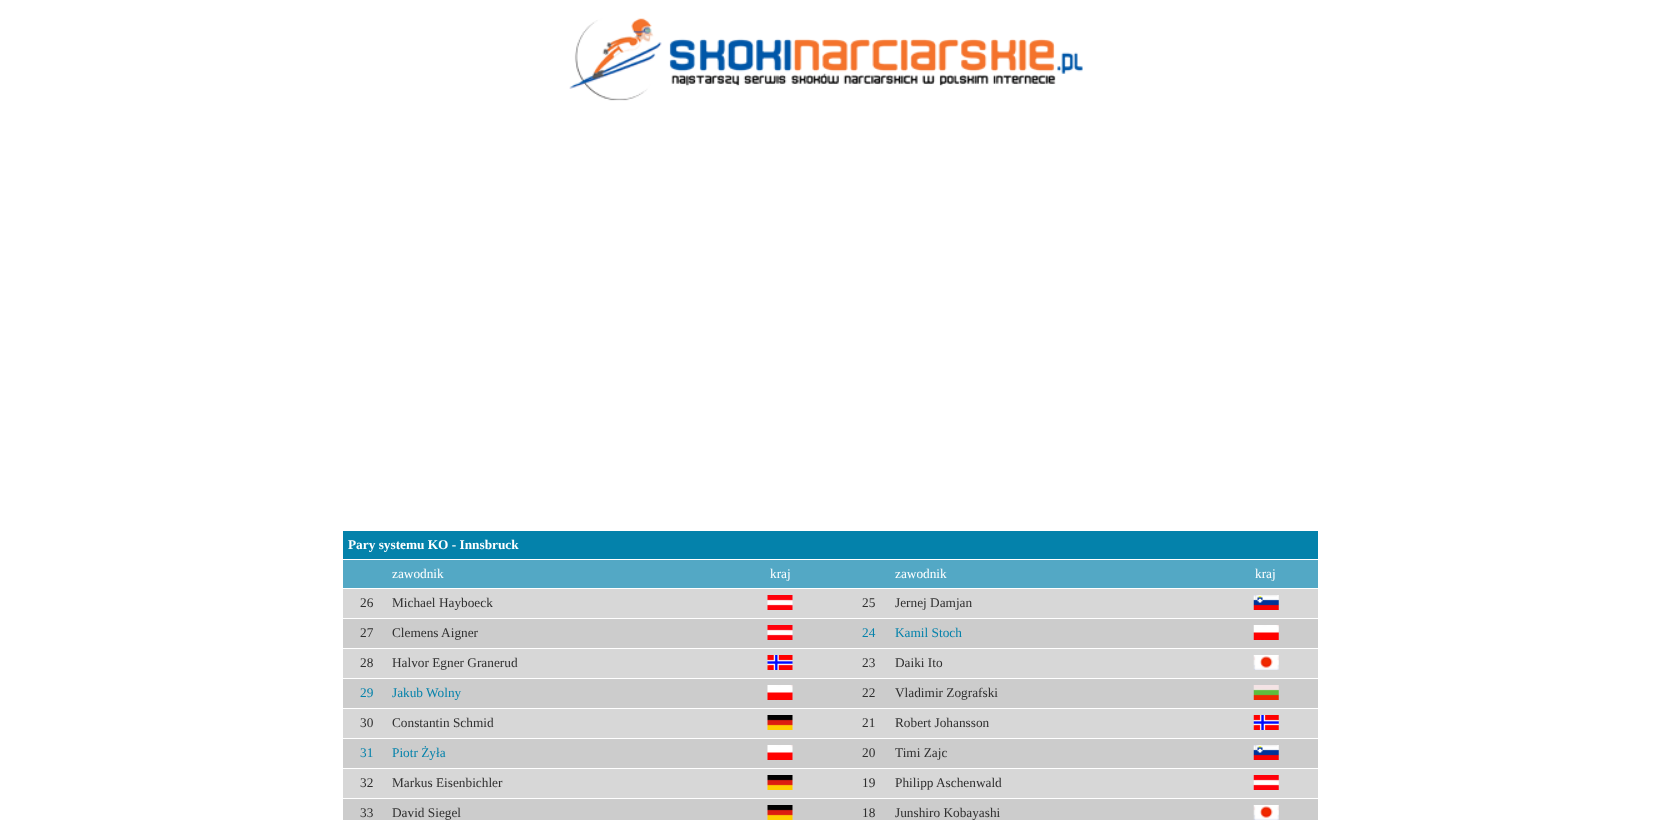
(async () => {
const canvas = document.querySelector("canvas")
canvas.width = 1660
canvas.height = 820
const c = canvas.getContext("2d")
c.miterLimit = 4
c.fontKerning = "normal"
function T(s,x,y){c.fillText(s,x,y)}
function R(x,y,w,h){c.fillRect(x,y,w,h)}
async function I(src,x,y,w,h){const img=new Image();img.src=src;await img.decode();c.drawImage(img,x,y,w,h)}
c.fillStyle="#fff"
R(0,0,1660,820)
await I("1.png",569,18,514,83)
c.fillStyle="#0482ab"
R(343,531,975,28)
c.font="bold 13.3px Liberation Serif"
c.fillStyle="#fff"
T("Pary systemu KO - Innsbruck",348,549)
c.fillStyle="#53a8c5"
R(343,560,975,28)
c.font="13.3px Liberation Serif"
c.fillStyle="#fff"
T("zawodnik",392,578)
T("kraj",770,578)
T("zawodnik",895,578)
T("kraj",1255,578)
c.fillStyle="#d7d7d7"
R(343,589,975,29)
c.fillStyle="#2f2f2f"
T("26",360,607)
T("Michael Hayboeck",392,607)
await I("2.png",767,595,26,15)
T("25",862,607)
T("Jernej Damjan",895,607)
await I("3.png",1253,595,26,15)
c.fillStyle="#ccc"
R(343,619,975,29)
c.fillStyle="#2f2f2f"
T("27",360,637)
T("Clemens Aigner",392,637)
await I("4.png",767,625,26,15)
c.fillStyle="#0482ab"
T("24",862,637)
T("Kamil Stoch",895,637)
await I("5.png",1253,625,26,15)
c.fillStyle="#d7d7d7"
R(343,649,975,29)
c.fillStyle="#2f2f2f"
T("28",360,667)
T("Halvor Egner Granerud",392,667)
await I("6.png",767,655,26,15)
T("23",862,667)
T("Daiki Ito",895,667)
await I("7.png",1253,655,26,15)
c.fillStyle="#ccc"
R(343,679,975,29)
c.fillStyle="#0482ab"
T("29",360,697)
T("Jakub Wolny",392,697)
await I("8.png",767,685,26,15)
c.fillStyle="#2f2f2f"
T("22",862,697)
T("Vladimir Zografski",895,697)
await I("9.png",1253,685,26,15)
c.fillStyle="#d7d7d7"
R(343,709,975,29)
c.fillStyle="#2f2f2f"
T("30",360,727)
T("Constantin Schmid",392,727)
await I("10.png",767,715,26,15)
T("21",862,727)
T("Robert Johansson",895,727)
await I("11.png",1253,715,26,15)
c.fillStyle="#ccc"
R(343,739,975,29)
c.fillStyle="#0482ab"
T("31",360,757)
T("Piotr Żyła",392,757)
await I("8.png",767,745,26,15)
c.fillStyle="#2f2f2f"
T("20",862,757)
T("Timi Zajc",895,757)
await I("12.png",1253,745,26,15)
c.fillStyle="#d7d7d7"
R(343,769,975,29)
c.fillStyle="#2f2f2f"
T("32",360,787)
T("Markus Eisenbichler",392,787)
await I("10.png",767,775,26,15)
T("19",862,787)
T("Philipp Aschenwald",895,787)
await I("13.png",1253,775,26,15)
c.fillStyle="#ccc"
R(343,799,975,21)
c.fillStyle="#2f2f2f"
T("33",360,817)
T("David Siegel",392,817)
await I("14.png",767,805,26,15)
T("18",862,817)
T("Junshiro Kobayashi",895,817)
await I("15.png",1253,805,26,15)
})()
